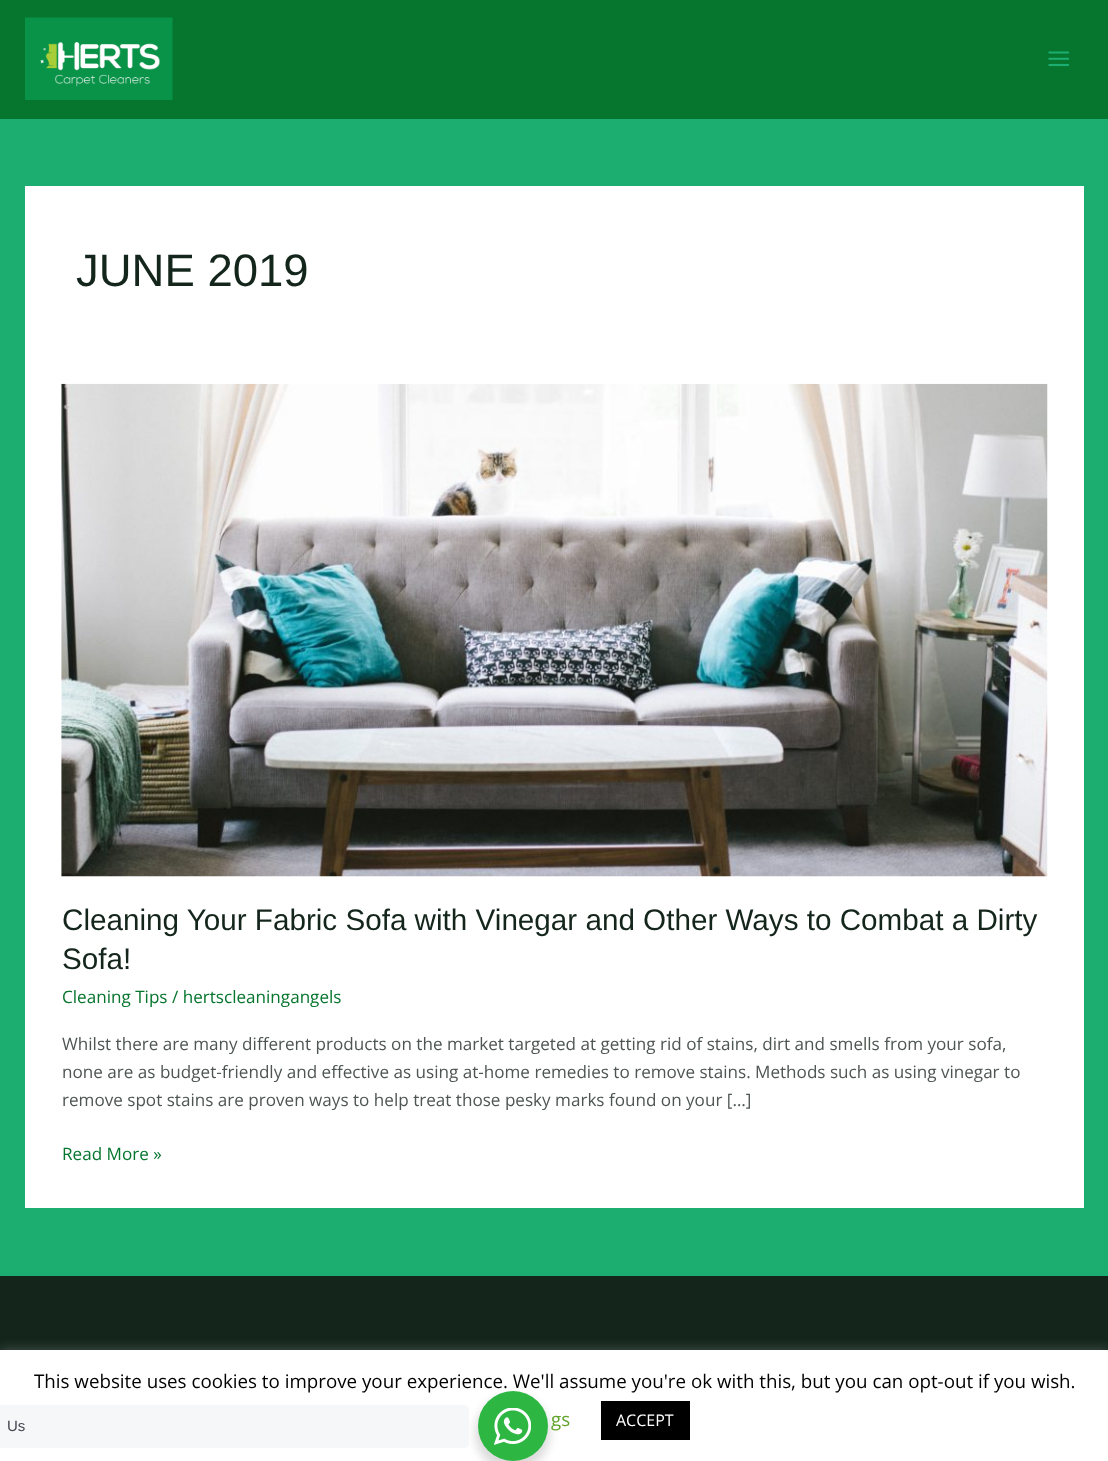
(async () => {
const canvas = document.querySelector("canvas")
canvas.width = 1108
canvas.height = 1461
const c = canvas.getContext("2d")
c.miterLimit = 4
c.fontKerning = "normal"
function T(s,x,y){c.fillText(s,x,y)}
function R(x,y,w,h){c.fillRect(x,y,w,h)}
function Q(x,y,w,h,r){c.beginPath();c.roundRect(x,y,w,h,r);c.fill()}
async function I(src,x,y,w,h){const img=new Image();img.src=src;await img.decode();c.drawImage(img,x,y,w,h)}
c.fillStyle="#1bae70"
R(0,0,1108,1461)
c.fillStyle="#06752e"
R(0,0,1108,119)
await I("1.png",25,17,148,83)
await I("2.png",1048,51,22,16)
c.fillStyle="#fff"
R(25,186,1059,1022)
c.font="45.5px Liberation Sans"
c.fillStyle="#14261c"
T("JUNE 2019",76,286)
await I("3.png",61,383,987,494)
c.font="29.65px Liberation Sans"
T("Cleaning Your Fabric Sofa with Vinegar and Other Ways to Combat a Dirty",62,930)
T("Sofa!",62,969)
c.font="17.1px Open Sans"
c.fillStyle="#06752e"
T("Cleaning Tips / hertscleaningangels",62,1003)
c.fillStyle="#4e5652"
T("Whilst there are many different products on the market targeted at getting rid of stains, dirt and smells from your sofa,",62,1050)
T("none are as budget-friendly and effective as using at-home remedies to remove stains. Methods such as using vinegar to",62,1078)
T("remove spot stains are proven ways to help treat those pesky marks found on your […]",62,1106)
c.fillStyle="#06752e"
T("Read More »",62,1160)
c.fillStyle="#14261c"
R(0,1276,1108,74)
c.fillStyle="#acabab4d"
c.filter="blur(6px)"
c.beginPath()
c.rect(0,1349,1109,111)
c.fill()
c.filter="none"
c.fillStyle="#fff"
R(0,1350,1108,111)
c.fillStyle="#00000024"
c.filter="blur(5px)"
c.beginPath()
c.roundRect(475,1396,75,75,37.5)
c.fill()
c.filter="none"
c.fillStyle="#f5f7f9"
Q(-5,1405,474,43,5)
c.font="15px Liberation Sans"
c.fillStyle="#43474e"
T("Us",7,1431)
c.font="18.75px Open Sans"
c.fillStyle="#000"
T("This website uses cookies to improve your experience. We'll assume you're ok with this, but you can opt-out if you wish.",34,1388)
c.fillStyle="#2db742"
c.beginPath()
c.arc(513,1426,35,0,7)
c.fill()
await I("4.png",494,1408,37,37)
c.fillStyle="#62a329"
T("gs",551,1426)
c.fillStyle="#000"
R(601,1401,89,39)
c.font="16px Open Sans"
c.fillStyle="#fff"
T("ACCEPT",616,1426)
})()
